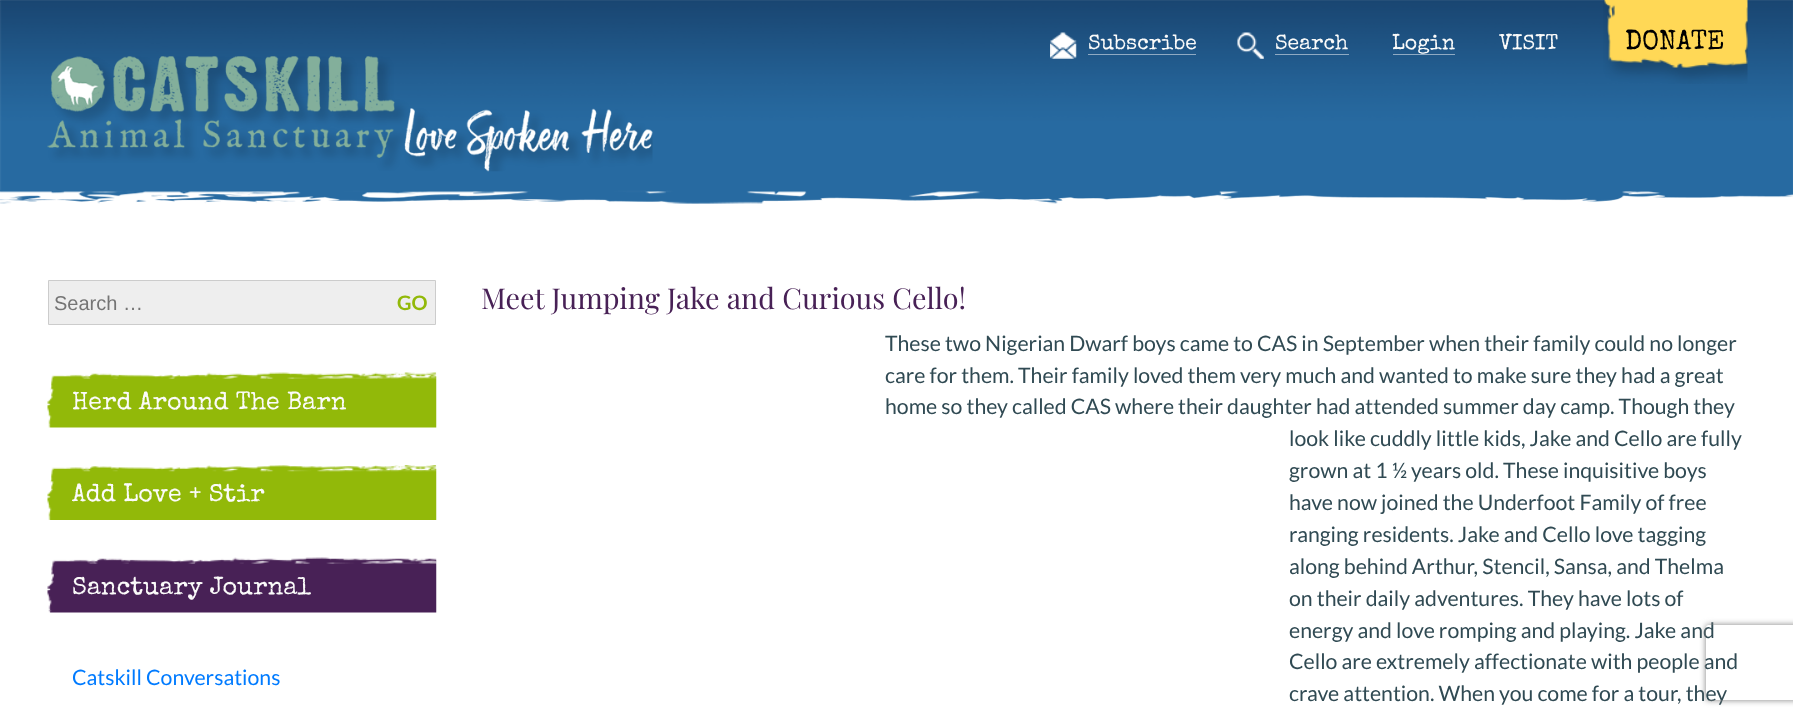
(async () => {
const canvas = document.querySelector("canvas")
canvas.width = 1793
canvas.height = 717
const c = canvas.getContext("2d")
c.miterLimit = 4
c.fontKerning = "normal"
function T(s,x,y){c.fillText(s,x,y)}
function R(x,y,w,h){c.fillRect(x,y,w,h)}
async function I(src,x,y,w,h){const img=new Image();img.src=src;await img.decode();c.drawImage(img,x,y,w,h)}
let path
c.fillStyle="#fff"
R(0,0,1793,717)
await I("1.png",0,0,1793,204)
await I("2.png",1050,32,27,27)
c.font="21.25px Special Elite"
c.fillStyle="#fbfbfa"
T("Subscribe",1088,49)
c.fillStyle="#8faac3"
R(1088,54,108,1)
await I("3.png",1237,32,27,27)
c.fillStyle="#fbfbfa"
T("Search",1275,49)
c.fillStyle="#8faac3"
R(1275,54,74,1)
c.fillStyle="#fbfbfa"
T("Login",1392,49)
c.fillStyle="#8faac3"
R(1393,54,62,1)
c.fillStyle="#fbfbfa"
T("VISIT",1499,49)
await I("4.png",1603,0,145,84)
c.font="27.5px Special Elite"
c.fillStyle="#000"
T("DONATE",1625,49)
await I("5.png",47,56,606,116)
c.fillStyle="#eee"
c.beginPath()
c.rect(48.5,280.5,387,44)
c.fill()
c.strokeStyle="#ccc"
c.stroke()
c.font="20px Liberation Sans"
c.fillStyle="#757575"
T("Search …",54,310)
c.font="bold 20px Lato"
c.fillStyle="#92b909"
T("GO",397,310)
await I("6.png",47,372,390,56)
c.font="25px Special Elite"
c.fillStyle="#fbfbfa"
T("Herd Around The Barn",72,409)
await I("7.png",47,465,390,55)
T("Add Love + Stir",72,501)
await I("8.png",47,557,390,56)
T("Sanctuary Journal",72,594)
c.font="21.25px Lato"
c.fillStyle="#007bff"
T("Catskill Conversations",72,685)
c.font="28.75px Playfair Display"
c.fillStyle="#482156"
T("Meet Jumping Jake and Curious Cello!",481,309)
c.font="21.25px Lato"
c.fillStyle="#304a53"
T("These two Nigerian Dwarf boys came to CAS in September when their family could no longer",885,351)
T("care for them. Their family loved them very much and wanted to make sure they had a great",885,383)
T("home so they called CAS where their daughter had attended summer day camp. Though they",885,414)
T("look like cuddly little kids, Jake and Cello are fully",1289,446)
T("grown at 1 ½ years old. These inquisitive boys",1289,478)
T("have now joined the Underfoot Family of free",1289,510)
T("ranging residents. Jake and Cello love tagging",1289,542)
T("along behind Arthur, Stencil, Sansa, and Thelma",1289,574)
T("on their daily adventures. They have lots of",1289,606)
T("energy and love romping and playing. Jake and",1289,638)
T("Cello are extremely affectionate with people and",1289,669)
T("crave attention. When you come for a tour, they",1289,701)
c.save()
path = new Path2D("M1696 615h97v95h-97zm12.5 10h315c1.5 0 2.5 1 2.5 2.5v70c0 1.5-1 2.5-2.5 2.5h-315c-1.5 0-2.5-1-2.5-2.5v-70c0-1.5 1-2.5 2.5-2.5z")
c.clip(path,"evenodd")
c.fillStyle="#808080"
c.filter="blur(3px)"
c.beginPath()
c.roundRect(1706,625,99,75,2.5)
c.fill()
c.filter="none"
c.restore()
})()
